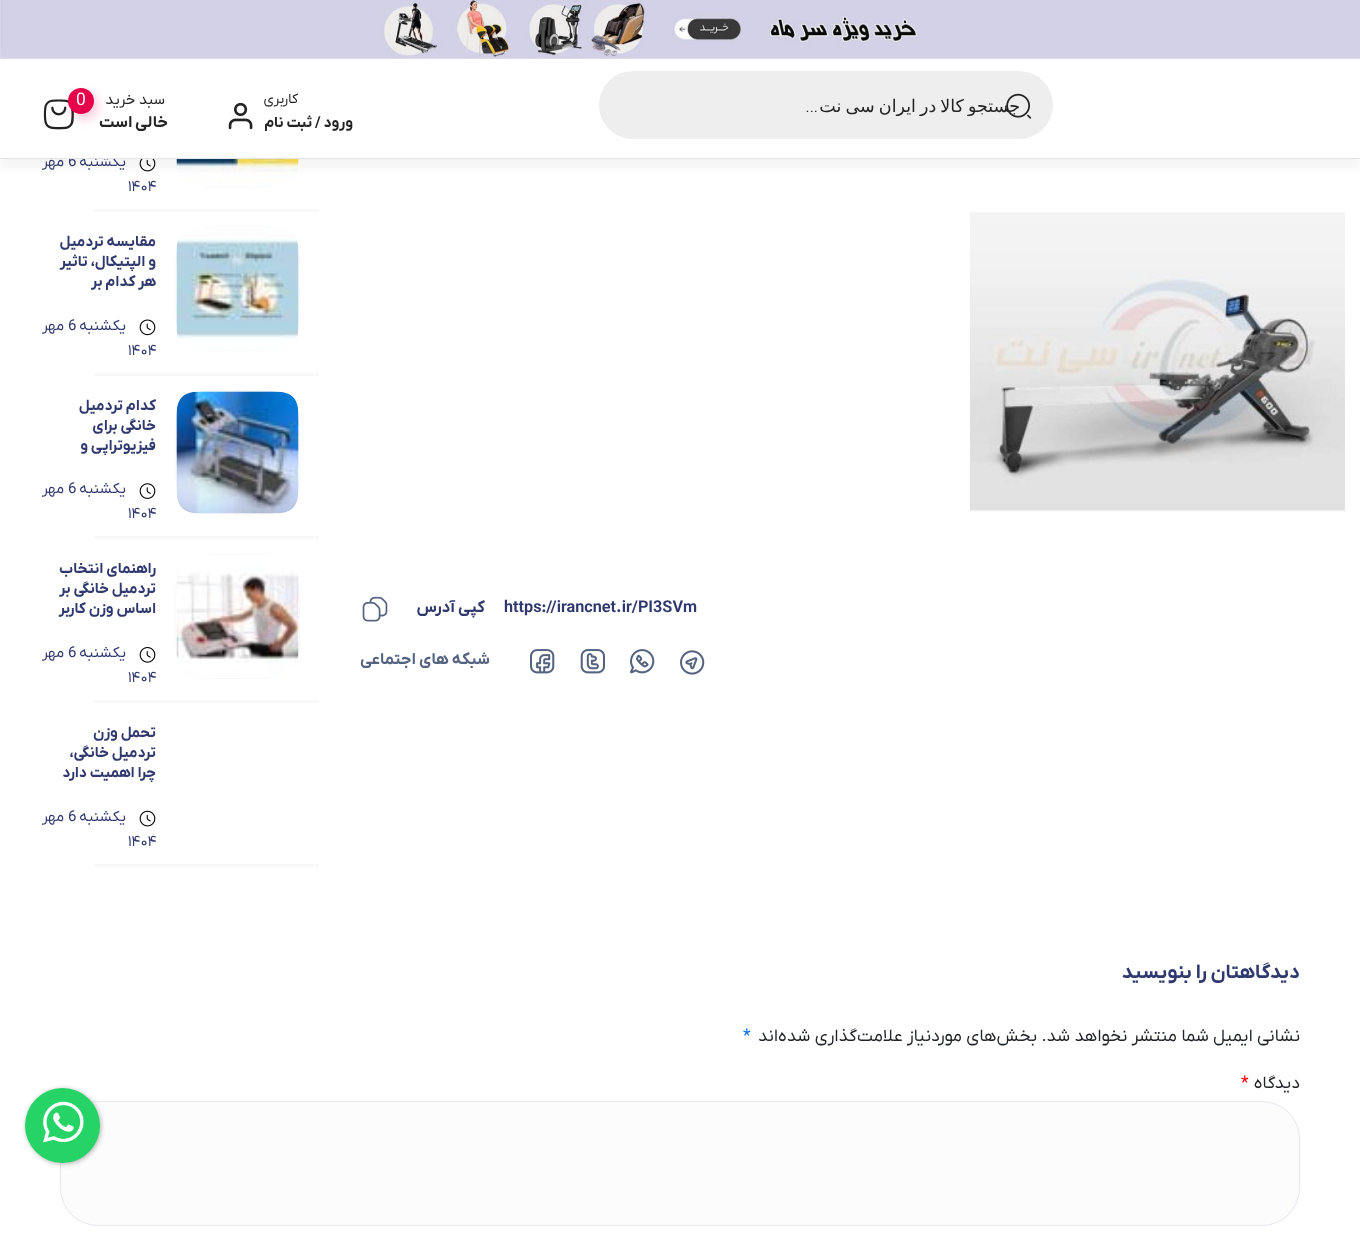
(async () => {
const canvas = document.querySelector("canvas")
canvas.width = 1360
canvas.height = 1237
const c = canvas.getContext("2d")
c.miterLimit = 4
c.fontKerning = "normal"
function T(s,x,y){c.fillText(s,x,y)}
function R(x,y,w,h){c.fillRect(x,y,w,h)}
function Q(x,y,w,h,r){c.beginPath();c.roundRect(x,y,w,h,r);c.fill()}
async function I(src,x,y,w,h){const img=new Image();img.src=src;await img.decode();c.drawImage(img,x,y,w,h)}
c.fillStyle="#fff"
R(0,0,1360,1237)
c.beginPath()
c.roundRect(175.5,63.5,124,124,37.5)
c.strokeStyle="#f9f9f9"
c.stroke()
await I("11.png",176,159,123,27)
await I("12.png",139,159,17,13)
c.fillStyle="#0000000a"
c.filter="blur(4.5px)"
c.beginPath()
c.rect(0,10,1360,159)
c.fill()
c.filter="none"
c.direction="rtl"
c.font="15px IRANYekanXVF"
c.fillStyle="#2f396e"
T("یکشنبه",126,166)
c.direction="ltr"
T("6",68,166)
c.fillStyle="#fff"
R(0,58,1360,100)
c.fillStyle="#e3e3e3"
R(0,158,1360,1)
await I("1.png",0,0,1360,59)
c.fillStyle="#eee"
Q(599,71,454,68,34)
c.save()
c.beginPath()
c.rect(661,96,359,20)
c.clip()
c.wordSpacing="-1.5px"
c.direction="rtl"
c.font="17.5px DejaVu Sans"
c.fillStyle="#232323"
T("جستجو کالا در ایران سی نت",1020,112)
c.restore()
await I("2.png",1006,93,26,26)
c.direction="rtl"
c.font="300 17.5px Roboto"
c.fillStyle="#232323"
T("...",818,112)
c.font="14px IRANYekanXVF"
T("کاربری",298,103)
c.font="bold 15px IRANYekanXVF"
T("ورود / ثبت نام",353,127)
await I("3.png",228,102,25,28)
c.font="15px IRANYekanXVF"
T("سبد خرید",165,104)
c.letterSpacing="0.5px"
c.wordSpacing="-1px"
c.font="bold 16.25px IRANYekanXVF"
T("خالی است",168,127)
await I("4.png",43,99,31,31)
c.fillStyle="#e7004a33"
c.filter="blur(5.5px)"
c.beginPath()
c.roundRect(71,93,27,26,13)
c.fill()
c.filter="none"
c.fillStyle="#e7004a"
c.beginPath()
c.arc(81,101,13,0,7)
c.fill()
c.letterSpacing="0px"
c.wordSpacing="0px"
c.direction="ltr"
c.font="17.5px IRANYekanXVF"
c.fillStyle="#fff"
T("0",76,105)
await I("5.png",970,212,375,300)
c.font="bold 16.25px IRANYekanXVF"
c.fillStyle="#2f396e"
T("https://irancnet.ir/PI3SVm",504,612)
c.direction="rtl"
T("کپی آدرس",485,612)
await I("6.png",362,596,26,26)
await I("7.png",680,650,25,25)
await I("8.png",630,649,25,25)
await I("9.png",580,649,25,25)
await I("10.png",530,649,25,25)
c.fillStyle="#54637f"
T("شبکه های اجتماعی",490,664)
c.font="15px IRANYekanXVF"
c.fillStyle="#2f396e"
T("مهر",64,166)
c.direction="ltr"
c.font="15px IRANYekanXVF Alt"
T("1404",128,191)
c.fillStyle="#f8f8f8"
R(93,209,226,3)
c.beginPath()
c.roundRect(175.5,226.5,124,124,37.5)
c.stroke()
await I("13.png",176,228,123,122)
c.direction="rtl"
c.font="bold 15px IRANYekanXVF"
c.fillStyle="#2f396e"
T("مقایسه تردمیل",156,246)
T("و الپتیکال، تاثیر",156,266)
T("هر کدام بر",156,286)
await I("14.png",139,319,17,17)
c.font="15px IRANYekanXVF"
T("یکشنبه",126,330)
c.direction="ltr"
T("6",68,330)
c.direction="rtl"
T("مهر",64,330)
c.direction="ltr"
c.font="15px IRANYekanXVF Alt"
T("1404",128,355)
c.fillStyle="#f8f8f8"
R(93,373,226,3)
c.beginPath()
c.roundRect(175.5,390.5,124,124,37.5)
c.stroke()
await I("15.png",176,391,123,123)
c.direction="rtl"
c.font="bold 15px IRANYekanXVF"
c.fillStyle="#2f396e"
T("کدام تردمیل",156,410)
T("خانگی برای",156,430)
T("فیزیوتراپی و",156,450)
await I("16.png",139,483,17,16)
c.font="15px IRANYekanXVF"
T("یکشنبه",126,493)
c.direction="ltr"
T("6",68,493)
c.direction="rtl"
T("مهر",64,493)
c.direction="ltr"
c.font="15px IRANYekanXVF Alt"
T("1404",128,518)
c.fillStyle="#f8f8f8"
R(93,536,226,3)
c.beginPath()
c.roundRect(175.5,554.5,124,124,37.5)
c.stroke()
await I("17.png",176,555,123,122)
c.direction="rtl"
c.font="bold 15px IRANYekanXVF"
c.fillStyle="#2f396e"
T("راهنمای انتخاب",156,573)
T("تردمیل خانگی بر",156,593)
T("اساس وزن کاربر",156,613)
await I("18.png",139,647,17,16)
c.font="15px IRANYekanXVF"
T("یکشنبه",126,657)
c.direction="ltr"
T("6",68,657)
c.direction="rtl"
T("مهر",64,657)
c.direction="ltr"
c.font="15px IRANYekanXVF Alt"
T("1404",128,682)
c.fillStyle="#f8f8f8"
R(93,700,226,3)
c.direction="rtl"
c.font="bold 15px IRANYekanXVF"
c.fillStyle="#2f396e"
T("تحمل وزن",156,737)
T("تردمیل خانگی،",156,757)
T("چرا اهمیت دارد",156,777)
await I("19.png",139,810,17,17)
c.font="15px IRANYekanXVF"
T("یکشنبه",126,821)
c.direction="ltr"
T("6",68,821)
c.direction="rtl"
T("مهر",64,821)
c.direction="ltr"
c.font="15px IRANYekanXVF Alt"
T("1404",128,846)
c.fillStyle="#f8f8f8"
R(93,864,226,3)
c.direction="rtl"
c.font="bold 20px IRANYekanXVF"
c.fillStyle="#2f396e"
T("دیدگاهتان را بنویسید",1300,978)
c.font="17.5px IRANYekanXVF"
c.fillStyle="#212529"
T("نشانی ایمیل شما منتشر نخواهد شد.",1300,1041)
T("بخش‌های موردنیاز علامت‌گذاری شده‌اند",1037,1041)
c.direction="ltr"
c.fillStyle="#0071e3"
T("*",743,1041)
c.direction="rtl"
c.fillStyle="#212529"
T("دیدگاه",1300,1088)
c.direction="ltr"
c.fillStyle="#f00"
T("*",1241,1088)
c.fillStyle="#fcfcfc"
c.beginPath()
c.roundRect(60.5,1101.5,1239,124,37.5)
c.fill()
c.strokeStyle="#e5e7ee"
c.stroke()
c.fillStyle="#0000004d"
c.filter="blur(2.5px)"
c.beginPath()
c.roundRect(26,1089,75,75,37.5)
c.fill()
c.filter="none"
c.fillStyle="#25d366"
c.beginPath()
c.arc(62.5,1125.5,37.5,0,7)
c.fill()
await I("20.png",43,1101,41,42)
})()
